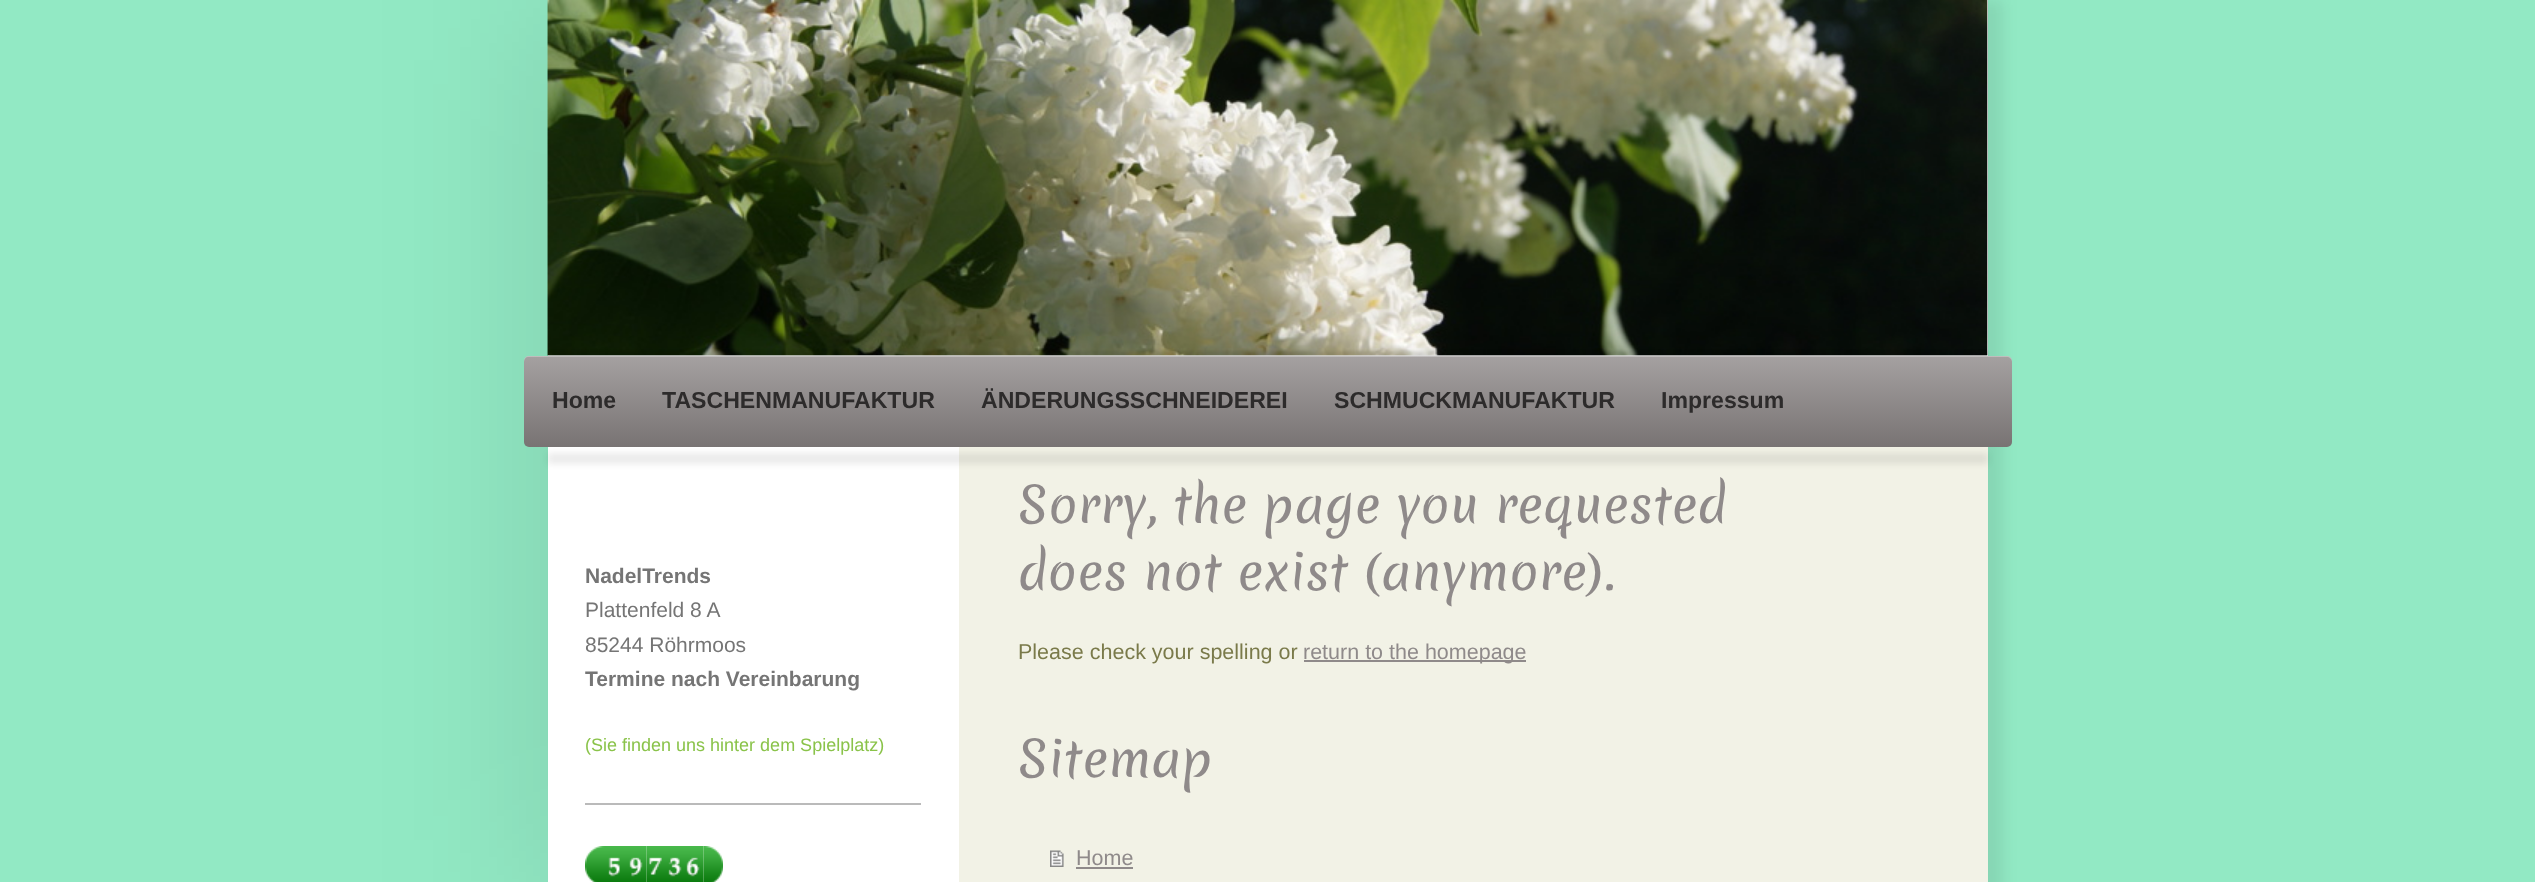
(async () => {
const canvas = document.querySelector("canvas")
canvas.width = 2535
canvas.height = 882
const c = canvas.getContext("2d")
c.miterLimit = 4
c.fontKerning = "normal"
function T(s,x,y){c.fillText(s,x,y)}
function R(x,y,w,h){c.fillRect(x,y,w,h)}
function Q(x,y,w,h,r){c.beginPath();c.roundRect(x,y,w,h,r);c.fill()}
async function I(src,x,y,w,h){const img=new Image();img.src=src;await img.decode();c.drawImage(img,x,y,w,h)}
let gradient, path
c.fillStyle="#92e9c4"
R(0,0,2535,882)
c.fillStyle="#00000026"
c.filter="blur(90px)"
c.beginPath()
c.rect(563,0,150,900)
c.fill()
c.filter="none"
await I("1.png",547,0,1,356)
c.fillStyle="#00000014"
c.filter="blur(7.5px)"
c.beginPath()
c.rect(1853,0,150,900)
c.fill()
c.filter="none"
c.fillStyle="#eee"
R(548,0,1440,356)
await I("2.png",547,0,1441,356)
c.fillStyle="#00000014"
c.filter="blur(1px)"
c.beginPath()
c.rect(548,351,1440,44)
c.fill()
c.filter="none"
gradient = c.createLinearGradient(524,356,524,447)
gradient.addColorStop(0,"#a5a1a1")
gradient.addColorStop(1,"#787373")
c.fillStyle = gradient
Q(524,356,1488,91,5)
c.fillStyle="#ffffff4d"
path = new Path2D("M528 357h1479c2 0 5 2 5 5v-1c0-3-2-5-5-5h-1478c-3 0-5 2-5 5v1c0-3 2-5 4-5z")
c.fill(path)
c.font="bold 23.1px Liberation Sans"
c.fillStyle="#2d2b2b"
T("Home",552,408)
T("TASCHENMANUFAKTUR",662,408)
T("ÄNDERUNGSSCHNEIDEREI",981,408)
T("SCHMUCKMANUFAKTUR",1334,408)
T("Impressum",1661,408)
c.fillStyle="#f2f2e6"
R(959,447,1029,435)
c.fillStyle="#fff"
R(548,447,411,435)
c.fillStyle="#00000014"
c.filter="blur(3px)"
c.beginPath()
c.rect(548,453,1440,11)
c.fill()
c.filter="none"
c.font="bold 21px Liberation Sans"
c.fillStyle="#757575"
T("NadelTrends",585,583)
c.font="21px Liberation Sans"
T("Plattenfeld 8 A",585,617)
T("85244 Röhrmoos",585,652)
c.font="bold 21px Liberation Sans"
T("Termine nach Vereinbarung",585,686)
c.font="18px Liberation Sans"
c.fillStyle="#8ac34a"
T("(Sie finden uns hinter dem Spielplatz)",585,751)
c.fillStyle="#bababa"
R(585,803,336,2)
await I("3.png",585,846,21,36)
await I("4.png",606,846,21,36)
await I("5.png",627,846,20,36)
await I("6.png",646,846,20,36)
await I("7.png",666,846,18,36)
await I("8.png",684,846,20,36)
await I("9.png",703,846,20,36)
c.font="48px Merienda"
c.fillStyle="#8f8a8a"
T("Sorry, the page you requested",1018,523)
T("does not exist (anymore).",1018,590)
c.font="21.5px Liberation Sans"
c.fillStyle="#7a7a4a"
T("Please check your spelling or",1018,659)
c.fillStyle="#8f8a8a"
R(1304,660,222,2)
T("return to the homepage",1303,659)
c.font="48px Merienda"
T("Sitemap",1018,777)
await I("10.png",1050,850,14,17)
c.font="21.5px Liberation Sans"
T("Home",1076,865)
R(1076,867,57,2)
})()
